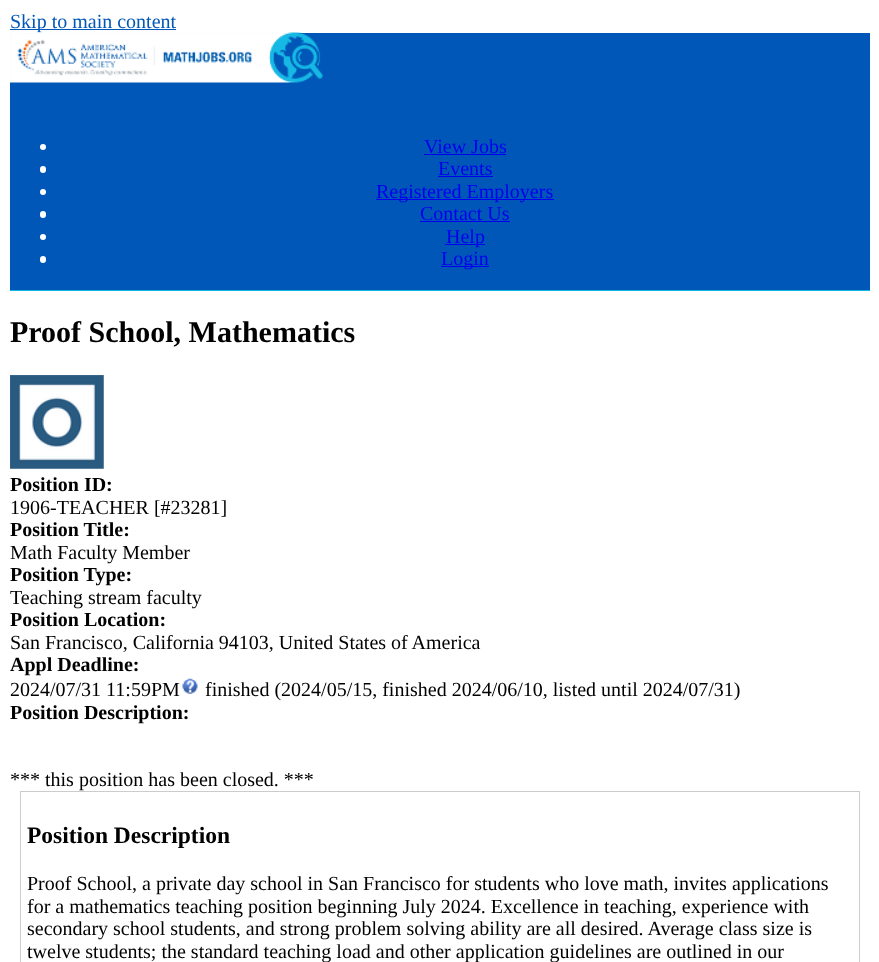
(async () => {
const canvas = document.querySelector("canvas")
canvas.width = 879
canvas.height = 962
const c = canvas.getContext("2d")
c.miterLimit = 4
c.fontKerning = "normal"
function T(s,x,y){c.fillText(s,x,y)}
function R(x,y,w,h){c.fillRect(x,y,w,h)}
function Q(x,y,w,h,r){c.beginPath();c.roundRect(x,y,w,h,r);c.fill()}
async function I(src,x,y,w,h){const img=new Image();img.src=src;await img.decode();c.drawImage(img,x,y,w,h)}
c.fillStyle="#fff"
R(0,0,879,962)
c.fillStyle="#0057b8"
R(10,29,166,1)
c.font="20px Liberation Serif"
T("Skip to main content",10,28)
R(10,33,860,257)
await I("1.png",10,32,313,51)
c.fillStyle="#fff"
c.beginPath()
c.arc(43,147,3,0,7)
c.fill()
c.fillStyle="#00e"
T("View Jobs",424,153)
R(424,154,82,1)
c.fillStyle="#fff"
Q(40,166,6,7,3)
c.fillStyle="#00e"
T("Events",438,175)
R(438,176,55,1)
c.fillStyle="#fff"
c.beginPath()
c.arc(43,192,3,0,7)
c.fill()
c.fillStyle="#00e"
R(376,199,178,1)
T("Registered Employers",376,198)
c.fillStyle="#fff"
Q(40,211,6,7,3)
c.fillStyle="#00e"
T("Contact Us",420,220)
R(420,221,90,1)
c.fillStyle="#fff"
c.beginPath()
c.arc(43,237,3,0,7)
c.fill()
c.fillStyle="#00e"
R(445,244,40,1)
T("Help",446,243)
c.fillStyle="#fff"
Q(40,256,6,7,3)
c.fillStyle="#00e"
R(441,266,48,1)
T("Login",441,265)
c.fillStyle="#0cb7e1"
R(10,290,860,1)
c.font="bold 30px Liberation Serif"
c.fillStyle="#000"
T("Proof School, Mathematics",10,342)
await I("2.png",10,375,94,94)
c.font="bold 20px Liberation Serif"
T("Position ID:",10,491)
c.font="20px Liberation Serif"
T("1906-TEACHER [#23281]",10,514)
c.font="bold 20px Liberation Serif"
T("Position Title:",10,536)
c.font="20px Liberation Serif"
T("Math Faculty Member",10,559)
c.font="bold 20px Liberation Serif"
T("Position Type:",10,581)
c.font="20px Liberation Serif"
T("Teaching stream faculty",10,604)
c.font="bold 20px Liberation Serif"
T("Position Location:",10,626)
c.font="20px Liberation Serif"
T("San Francisco, California 94103, United States of America",10,649)
c.font="bold 20px Liberation Serif"
T("Appl Deadline:",10,671)
c.font="20px Liberation Serif"
T("2024/07/31 11:59PM",10,696)
await I("3.png",182,678,16,16)
T("finished (2024/05/15, finished 2024/06/10, listed until 2024/07/31)",205,696)
c.font="bold 20px Liberation Serif"
T("Position Description:",10,719)
c.font="20px Liberation Serif"
T("*** this position has been closed. ***",10,786)
c.strokeStyle="#ccc"
c.strokeRect(20.5,791.5,839,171)
c.font="bold 23.5px Liberation Serif"
T("Position Description",27,843)
c.font="20px Liberation Serif"
T("Proof School, a private day school in San Francisco for students who love math, invites applications",27,890)
T("for a mathematics teaching position beginning July 2024. Excellence in teaching, experience with",27,913)
T("secondary school students, and strong problem solving ability are all desired. Average class size is",27,935)
T("twelve students; the standard teaching load and other application guidelines are outlined in our",27,958)
})()
